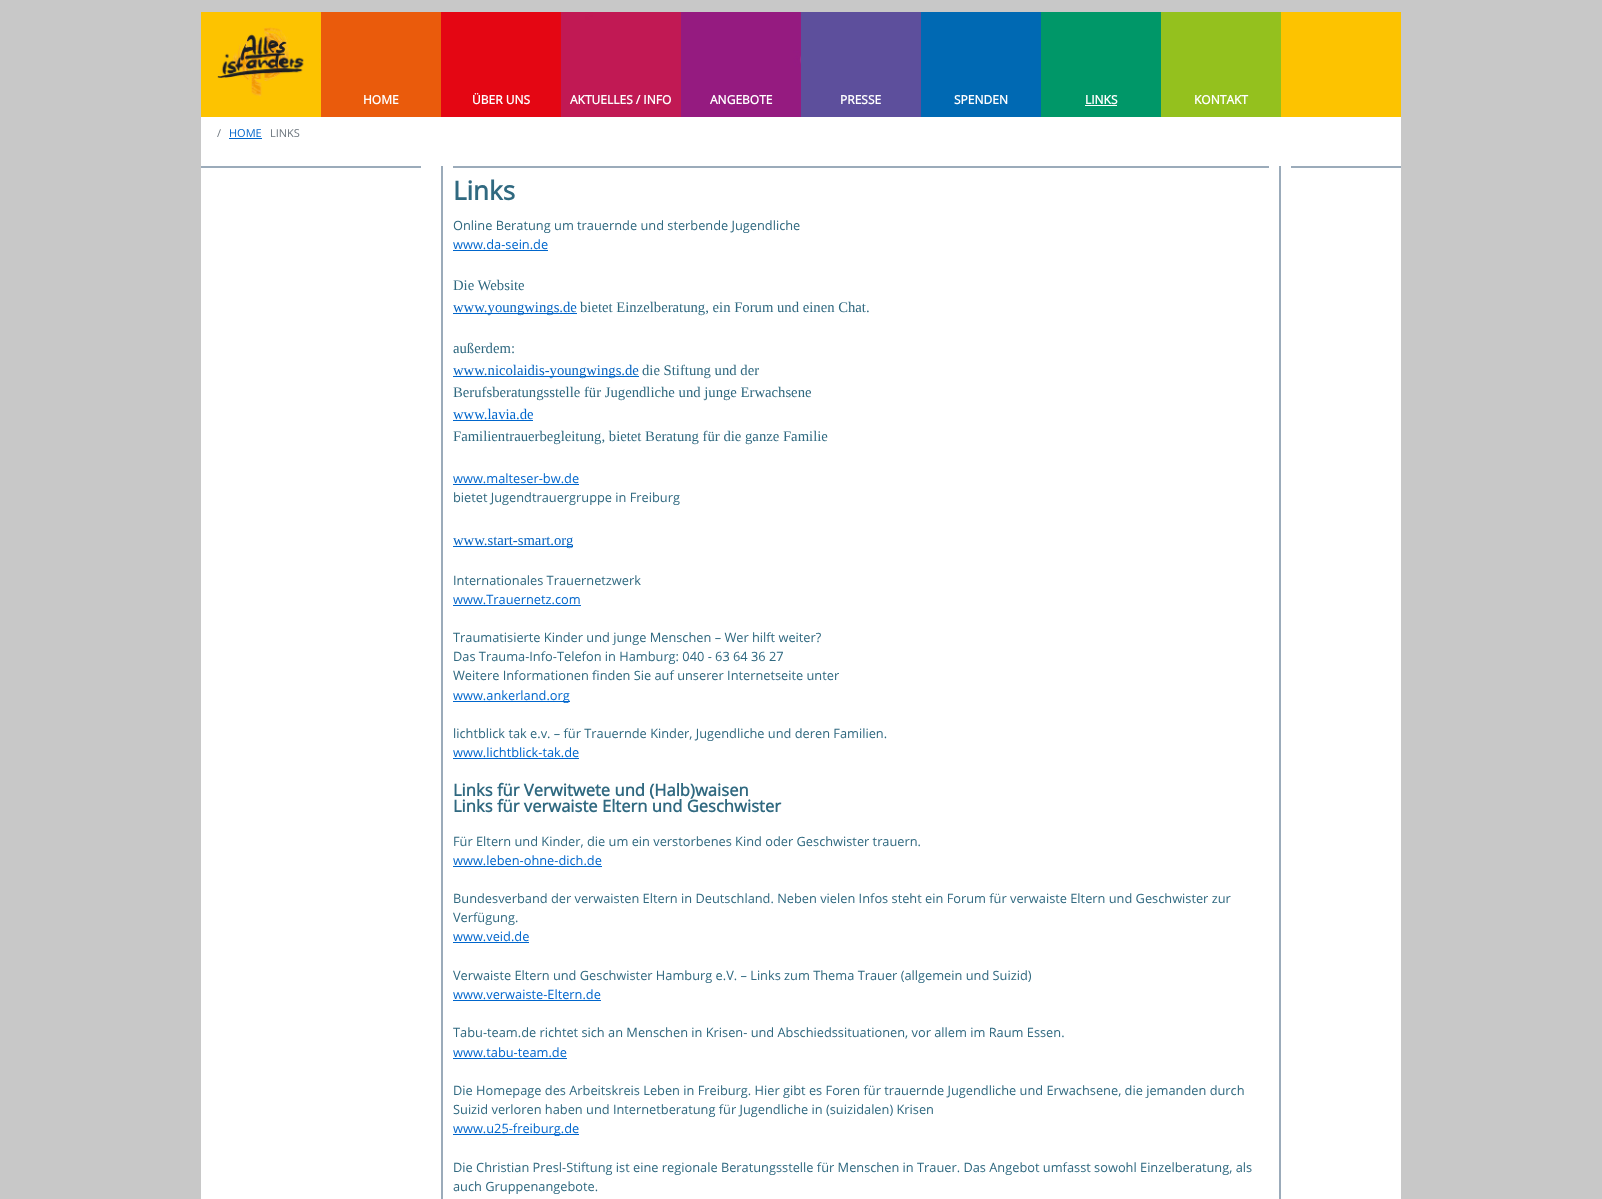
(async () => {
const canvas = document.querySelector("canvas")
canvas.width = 1602
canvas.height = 1199
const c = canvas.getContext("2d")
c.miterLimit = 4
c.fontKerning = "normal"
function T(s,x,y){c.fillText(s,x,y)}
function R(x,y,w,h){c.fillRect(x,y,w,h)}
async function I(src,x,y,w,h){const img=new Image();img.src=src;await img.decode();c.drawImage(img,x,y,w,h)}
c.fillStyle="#c8c8c8"
R(0,0,1602,1199)
c.fillStyle="#fff"
R(201,117,1200,1082)
await I("1.png",201,12,1200,105)
await I("2.png",217,27,87,70)
c.font="bold 12px Open Sans"
T("HOME",363,104)
T("ÜBER UNS",472,104)
T("AKTUELLES / INFO",570,104)
T("ANGEBOTE",710,104)
T("PRESSE",840,104)
T("SPENDEN",954,104)
T("LINKS",1085,104)
R(1085,105,32,1)
T("KONTAKT",1194,104)
c.font="11px Open Sans"
c.fillStyle="#6c757d"
T("/",217,137)
T("LINKS",270,137)
c.fillStyle="#06c"
T("HOME",229,137)
R(229,138,33,1)
c.fillStyle="#9babba"
R(201,166,220,2)
R(1291,166,110,2)
R(1279,166,2,1033)
R(441,166,2,1033)
R(453,166,816,2)
c.font="bold 26px Open Sans"
c.fillStyle="#306980"
T("Links",453,200)
c.font="12.8px Open Sans"
T("Online Beratung um trauernde und sterbende Jugendliche",453,230)
c.fillStyle="#06c"
T("www.da-sein.de",453,249)
R(453,250,95,1)
c.font="14.7px Liberation Serif"
c.fillStyle="#306980"
T("Die Website",453,290)
c.fillStyle="#06c"
R(453,313,124,1)
c.fillStyle="#0563c1"
T("www.youngwings.de",453,312)
c.fillStyle="#306980"
T("bietet Einzelberatung, ein Forum und einen Chat.",580,312)
T("außerdem:",453,353)
c.fillStyle="#06c"
R(453,376,186,1)
c.fillStyle="#0563c1"
T("www.nicolaidis-youngwings.de",453,375)
c.fillStyle="#306980"
T("die Stiftung und der",642,375)
T("Berufsberatungsstelle für Jugendliche und junge Erwachsene",453,397)
c.fillStyle="#06c"
T("www.lavia.de",453,419)
R(453,420,80,1)
c.fillStyle="#306980"
T("Familientrauerbegleitung, bietet Beratung für die ganze Familie",453,441)
c.font="12.8px Open Sans"
c.fillStyle="#06c"
T("www.malteser-bw.de",453,483)
R(453,484,126,1)
c.fillStyle="#306980"
T("bietet Jugendtrauergruppe in Freiburg",453,502)
c.fillStyle="#06c"
R(453,546,120,1)
c.font="14.7px Liberation Serif"
c.fillStyle="#0563c1"
T("www.start-smart.org",453,545)
c.font="12.8px Open Sans"
c.fillStyle="#306980"
T("Internationales Trauernetzwerk",453,585)
c.fillStyle="#06c"
T("www.Trauernetz.com",453,604)
R(453,605,128,1)
c.fillStyle="#306980"
T("Traumatisierte Kinder und junge Menschen – Wer hilft weiter?",453,642)
T("Das Trauma-Info-Telefon in Hamburg: 040 - 63 64 36 27",453,661)
T("Weitere Informationen finden Sie auf unserer Internetseite unter",453,680)
c.fillStyle="#06c"
R(453,701,117,1)
T("www.ankerland.org",453,700)
c.fillStyle="#306980"
T("lichtblick tak e.v. – für Trauernde Kinder, Jugendliche und deren Familien.",453,738)
c.fillStyle="#06c"
T("www.lichtblick-tak.de",453,757)
R(453,758,126,1)
c.font="bold 16.6px Open Sans"
c.fillStyle="#306980"
T("Links für Verwitwete und (Halb)waisen",453,796)
T("Links für verwaiste Eltern und Geschwister",453,812)
c.font="12.8px Open Sans"
T("Für Eltern und Kinder, die um ein verstorbenes Kind oder Geschwister trauern.",453,846)
c.fillStyle="#06c"
T("www.leben-ohne-dich.de",453,865)
R(453,866,149,1)
c.fillStyle="#306980"
T("Bundesverband der verwaisten Eltern in Deutschland. Neben vielen Infos steht ein Forum für verwaiste Eltern und Geschwister zur",453,903)
T("Verfügung.",453,922)
c.fillStyle="#06c"
T("www.veid.de",453,941)
R(453,942,76,1)
c.fillStyle="#306980"
T("Verwaiste Eltern und Geschwister Hamburg e.V. – Links zum Thema Trauer (allgemein und Suizid)",453,980)
c.fillStyle="#06c"
T("www.verwaiste-Eltern.de",453,999)
R(453,1000,148,1)
c.fillStyle="#306980"
T("Tabu-team.de richtet sich an Menschen in Krisen- und Abschiedssituationen, vor allem im Raum Essen.",453,1037)
c.fillStyle="#06c"
T("www.tabu-team.de",453,1057)
R(453,1058,114,1)
c.fillStyle="#306980"
T("Die Homepage des Arbeitskreis Leben in Freiburg. Hier gibt es Foren für trauernde Jugendliche und Erwachsene, die jemanden durch",453,1095)
T("Suizid verloren haben und Internetberatung für Jugendliche in (suizidalen) Krisen",453,1114)
c.fillStyle="#06c"
R(453,1134,126,1)
T("www.u25-freiburg.de",453,1133)
c.fillStyle="#306980"
T("Die Christian Presl-Stiftung ist eine regionale Beratungsstelle für Menschen in Trauer. Das Angebot umfasst sowohl Einzelberatung, als",453,1172)
T("auch Gruppenangebote.",453,1191)
})()
